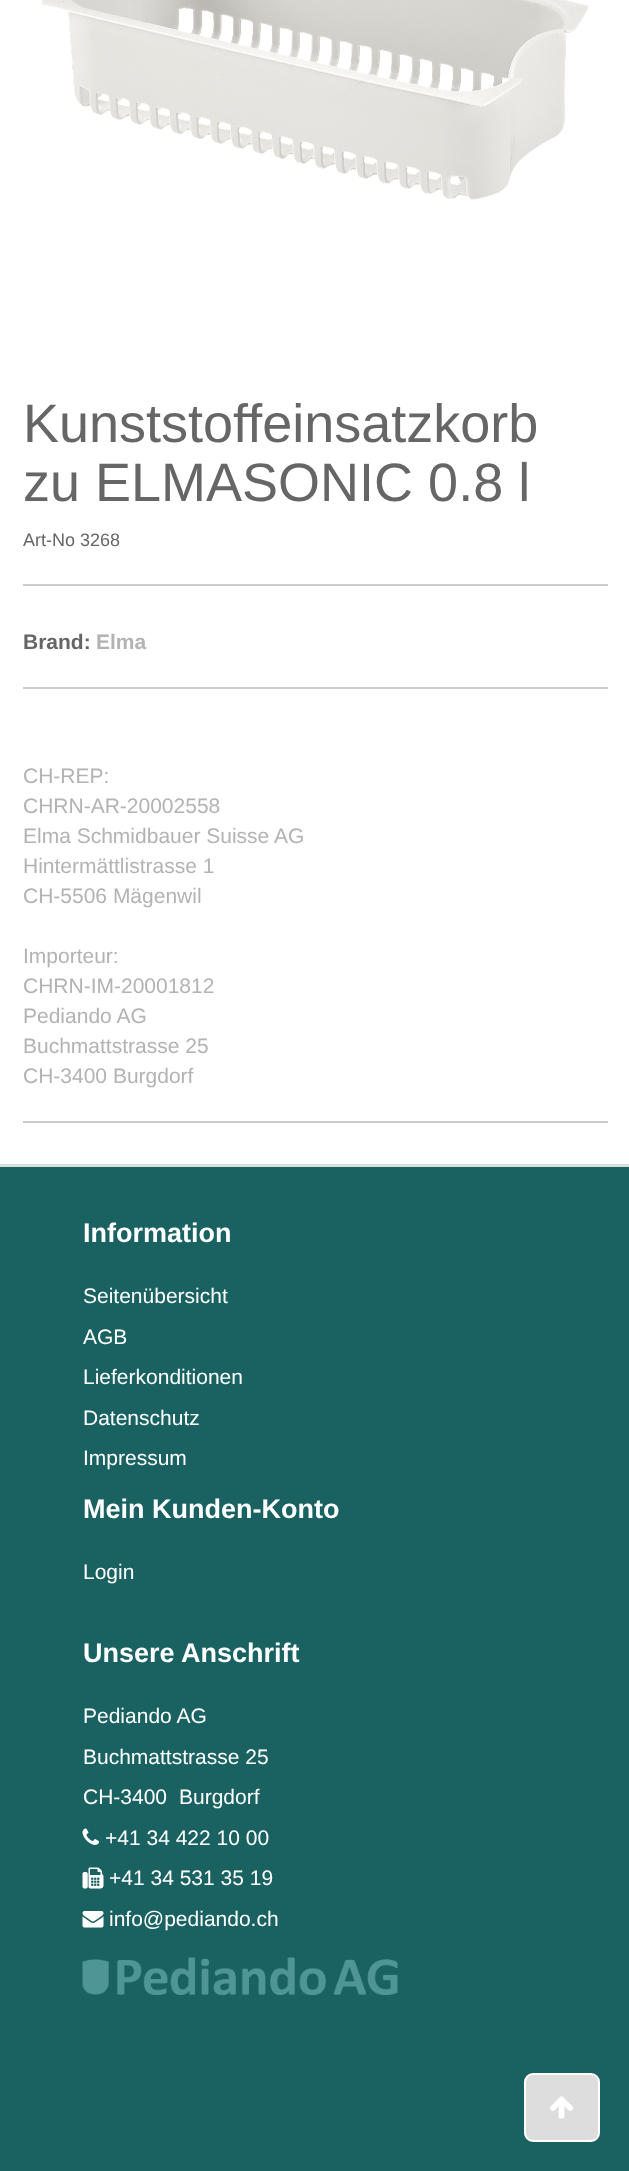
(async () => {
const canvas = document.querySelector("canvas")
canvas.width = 629
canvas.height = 2171
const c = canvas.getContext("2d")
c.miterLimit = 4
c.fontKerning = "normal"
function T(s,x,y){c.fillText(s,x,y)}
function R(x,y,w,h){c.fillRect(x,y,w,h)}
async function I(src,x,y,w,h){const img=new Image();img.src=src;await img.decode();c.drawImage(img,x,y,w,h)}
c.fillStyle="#fff"
R(0,0,629,2171)
await I("1.png",41,0,548,200)
c.font="54px Liberation Sans"
c.fillStyle="#666"
T("Kunststoffeinsatzkorb",23,442)
T("zu ELMASONIC 0.8 l",23,501)
c.font="18px Liberation Sans"
T("Art-No 3268",23,546)
c.fillStyle="#ccc"
R(23,584,585,2)
c.font="bold 21px Liberation Sans"
c.fillStyle="#666"
T("Brand:",23,649)
c.fillStyle="#b3b3b3"
T("Elma",96,649)
c.fillStyle="#ccc"
R(23,687,585,2)
c.font="21px Liberation Sans"
c.fillStyle="#b3b3b3"
T("CH-REP:",23,783)
T("CHRN-AR-20002558",23,813)
T("Elma Schmidbauer Suisse AG",23,843)
T("Hintermättlistrasse 1",23,873)
T("CH-5506 Mägenwil",23,903)
T("Importeur:",23,963)
T("CHRN-IM-20001812",23,993)
T("Pediando AG",23,1023)
T("Buchmattstrasse 25",23,1053)
T("CH-3400 Burgdorf",23,1083)
c.fillStyle="#ccc"
R(23,1121,585,2)
c.fillStyle="#ddd"
R(0,1164,629,3)
c.fillStyle="#1a6262"
R(0,1167,629,1004)
c.font="bold 27px Liberation Sans"
c.fillStyle="#fff"
T("Information",83,1242)
c.font="21px Liberation Sans"
T("Seitenübersicht",83,1303)
T("AGB",83,1344)
T("Lieferkonditionen",83,1384)
T("Datenschutz",83,1425)
T("Impressum",83,1465)
c.font="bold 27px Liberation Sans"
T("Mein Kunden-Konto",83,1518)
c.font="21px Liberation Sans"
T("Login",83,1579)
c.font="bold 27px Liberation Sans"
T("Unsere Anschrift",83,1662)
c.font="21px Liberation Sans"
T("Pediando AG",83,1723)
T("Buchmattstrasse 25",83,1764)
T("CH-3400",83,1804)
T("Burgdorf",179,1804)
await I("2.png",82,1828,17,17)
T("+41 34 422 10 00",105,1845)
await I("3.png",82,1867,22,22)
T("+41 34 531 35 19",109,1885)
await I("4.png",82,1911,22,17)
T("info@pediando.ch",109,1926)
await I("5.png",82,1957,316,38)
c.fillStyle="#ddd"
c.beginPath()
c.roundRect(525,2074,74,67,8)
c.fill()
c.strokeStyle="#fff"
c.lineWidth=2
c.stroke()
await I("6.png",550,2096,24,23)
})()
